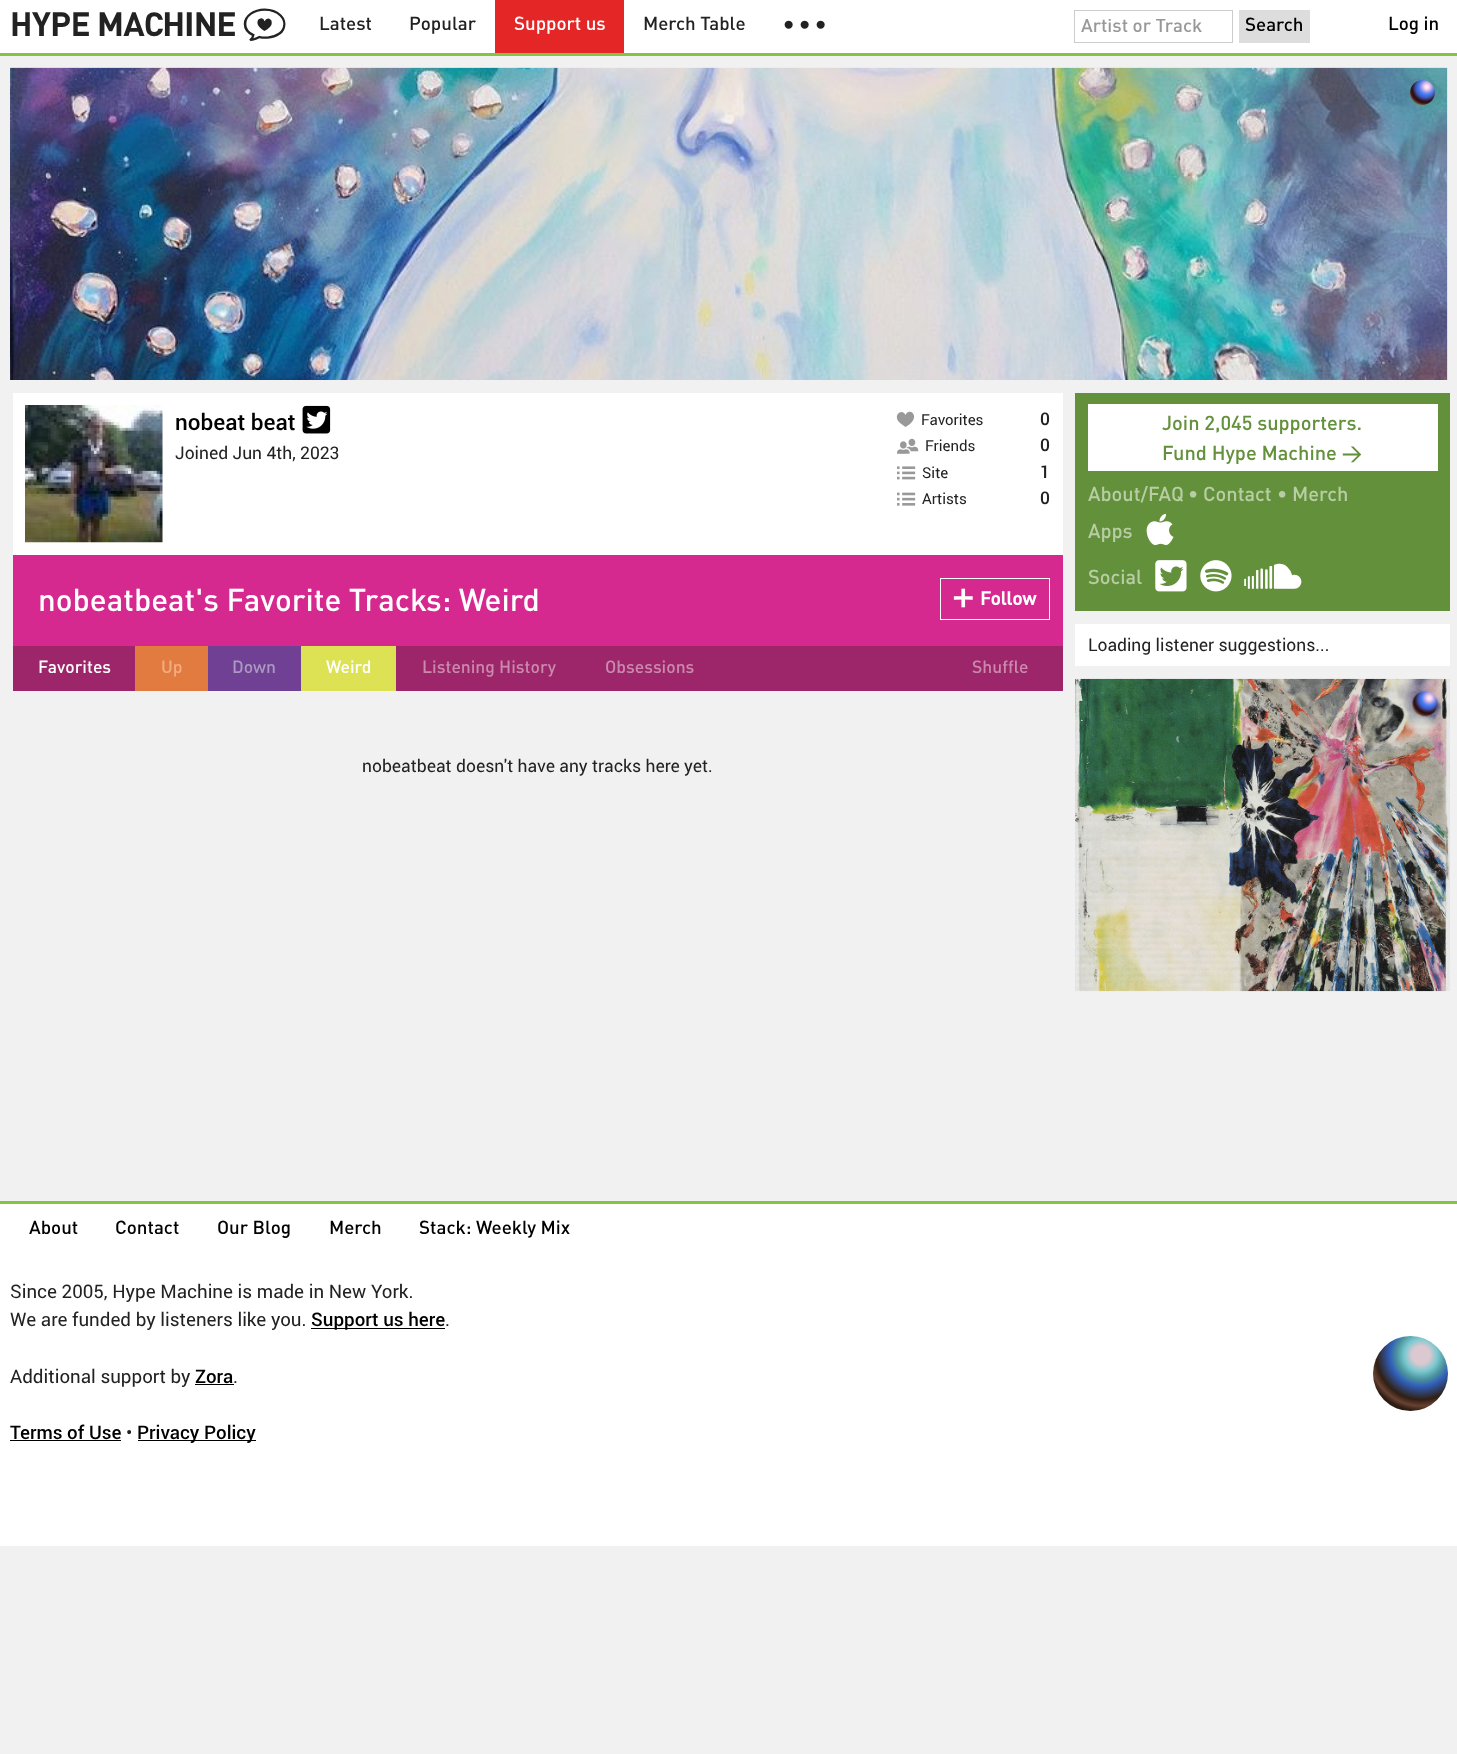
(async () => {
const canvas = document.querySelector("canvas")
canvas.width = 1457
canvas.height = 1754
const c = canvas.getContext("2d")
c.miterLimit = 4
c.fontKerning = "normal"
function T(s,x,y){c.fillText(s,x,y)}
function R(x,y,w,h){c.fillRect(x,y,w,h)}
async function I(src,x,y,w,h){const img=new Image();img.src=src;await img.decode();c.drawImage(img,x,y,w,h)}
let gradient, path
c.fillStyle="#f1f1f1"
R(0,0,1457,1754)
c.fillStyle="#fff"
R(0,0,1457,53)
c.fillStyle="#83c441"
R(0,53,1457,3)
c.font="47.5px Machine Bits"
c.fillStyle="#222"
T("1",10,35)
c.font="500 18.75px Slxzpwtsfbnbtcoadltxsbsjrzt"
T("Latest",319,30)
T("Popular",409,30)
c.fillStyle="#e42626"
R(495,0,129,53)
c.fillStyle="#fff"
T("Support us",514,30)
c.fillStyle="#222"
T("Merch Table",643,30)
c.font="bold 18.75px Liberation Serif"
T("● ● ●",783,30)
c.strokeStyle="#ccc"
c.strokeRect(1074.5,10.5,158,32)
c.save()
c.beginPath()
c.rect(1081,19,150,19)
c.clip()
c.font="500 18.75px Slxzpwtsfbnbtcoadltxsbsjrzt"
c.fillStyle="#999"
T("Artist or Track",1081,32)
c.restore()
c.fillStyle="#ddd"
R(1239,10,71,33)
c.font="500 18.75px Slxzpwtsfbnbtcoadltxsbsjrzt"
c.fillStyle="#000"
T("Search",1245,31)
T("Log in",1388,30)
await I("1.png",10,67,1438,313)
c.fillStyle="#fff"
R(13,393,1050,162)
await I("2.png",25,405,138,138)
c.font="500 22.5px Roboto"
c.fillStyle="#000"
T("nobeat beat",175,430)
await I("3.png",302,405,29,29)
c.font="17.5px Roboto"
c.fillStyle="#222"
T("Joined Jun 4th, 2023",175,459)
c.fillStyle="#999"
path = new Path2D("M905.5 415c3.5-8 14.5 .5 4.5 9l-4.5 3l-5.5-4c-8.5-8 2.5-15.5 5.5-8z")
c.fill(path)
c.font="15px Roboto"
c.fillStyle="#222"
T("Favorites",921,425)
c.font="500 17.5px Roboto"
T("0",1040,425)
await I("4.png",897,438,22,16)
c.font="15px Roboto"
T("Friends",925,451)
c.font="500 17.5px Roboto"
T("0",1040,451)
await I("5.png",897,466,19,14)
c.font="15px Roboto"
T("Site",922,478)
c.font="500 17.5px Roboto"
T("1",1040,478)
await I("6.png",897,492,19,14)
c.font="15px Roboto"
T("Artists",922,504)
c.font="500 17.5px Roboto"
T("0",1040,504)
c.fillStyle="#63903a"
R(1075,393,375,218)
c.fillStyle="#fff"
R(1088,404,350,67)
c.font="500 20px Slxzpwtsfbnbtcoadltxsbsjrzt"
c.fillStyle="#63903a"
T("Join 2,045 supporters.",1162,430)
T("Fund Hype Machine →",1162,460)
c.save()
c.beginPath()
c.rect(1088,486,350,20)
c.clip()
c.fillStyle="#b9cda5"
T("About/FAQ",1088,501)
c.restore()
c.fillStyle="#b9cda5"
T("•",1188,501)
T("Contact",1203,501)
T("•",1277,501)
T("Merch",1292,501)
T("Apps",1088,538)
await I("7.png",1146,513,28,33)
T("Social",1088,584)
await I("8.png",1155,560,32,32)
await I("9.png",1200,560,32,32)
c.font="25px Machine Bits"
c.fillStyle="#fff"
T("9",1243,586)
R(1075,624,375,42)
c.font="17.5px Roboto"
c.fillStyle="#222"
T("Loading listener suggestions...",1088,651)
await I("10.png",1075,678,375,314)
c.fillStyle="#d62990"
R(13,555,1050,91)
c.font="500 31.25px Slxzpwtsfbnbtcoadltxsbsjrzt"
c.fillStyle="#fff"
T("nobeatbeat's Favorite Tracks: Weird",38,611)
c.strokeStyle="#fff"
c.strokeRect(940.5,578.5,109,41)
c.font="18.75px Machine Bits"
T("+",953,605)
c.font="bold 18.75px Slxzpwtsfbnbtcoadltxsbsjrzt"
T("Follow",980,605)
c.fillStyle="#9c2669"
R(13,646,1050,45)
c.font="500 17.5px Slxzpwtsfbnbtcoadltxsbsjrzt"
c.fillStyle="#fff"
T("Favorites",38,673)
c.fillStyle="#e17b3f"
R(135,646,73,45)
c.fillStyle="#f3ad82"
T("Up",161,673)
c.fillStyle="#6f4094"
R(208,646,93,45)
c.fillStyle="#aa99c0"
T("Down",232,673)
c.fillStyle="#dce253"
R(301,646,95,45)
c.fillStyle="#fff"
T("Weird",326,673)
c.fillStyle="#ca8aae"
T("Listening History",422,673)
T("Obsessions",605,673)
T("Shuffle",972,673)
c.font="17.5px Roboto"
c.fillStyle="#222"
T("nobeatbeat doesn't have any tracks here yet.",362,772)
c.fillStyle="#fff"
R(0,1204,1457,342)
c.fillStyle="#83c441"
R(0,1201,1457,3)
c.font="500 18.75px Slxzpwtsfbnbtcoadltxsbsjrzt"
c.fillStyle="#000"
T("About",29,1234)
T("Contact",115,1234)
T("Our Blog",217,1234)
T("Merch",329,1234)
T("Stack: Weekly Mix",419,1234)
c.font="18.75px Roboto"
c.fillStyle="#222"
T("Since 2005, Hype Machine is made in New York.",10,1298)
T("We are funded by listeners like you.",10,1326)
c.fillStyle="#000"
R(311,1328,134,1)
c.font="500 18.75px Roboto"
T("Support us here",311,1326)
c.font="18.75px Roboto"
c.fillStyle="#222"
T(".",445,1326)
T("Additional support by",10,1383)
c.font="500 18.75px Roboto"
c.fillStyle="#000"
T("Zora",195,1383)
R(195,1384,39,1)
c.font="18.75px Roboto"
c.fillStyle="#222"
T(".",233,1383)
gradient = c.createRadialGradient(1421,1355,0,1421,1355,56)
gradient.addColorStop(.16,"#dcc8d0")
gradient.addColorStop(.3,"#78c8cf")
gradient.addColorStop(.43,"#4d959e")
gradient.addColorStop(.56,"#305eb9")
gradient.addColorStop(.8,"#311f12")
gradient.addColorStop(.91,"#684232")
gradient.addColorStop(1,"#2d1c13")
c.fillStyle = gradient
c.beginPath()
c.arc(1410.5,1373.5,37.5,0,7)
c.fill()
c.font="500 18.75px Roboto"
c.fillStyle="#000"
T("Terms of Use",10,1439)
R(10,1440,111,1)
c.font="18.75px Roboto"
c.fillStyle="#222"
T("•",126,1439)
c.fillStyle="#000"
R(138,1440,118,1)
c.font="500 18.75px Roboto"
T("Privacy Policy",137,1439)
})()
